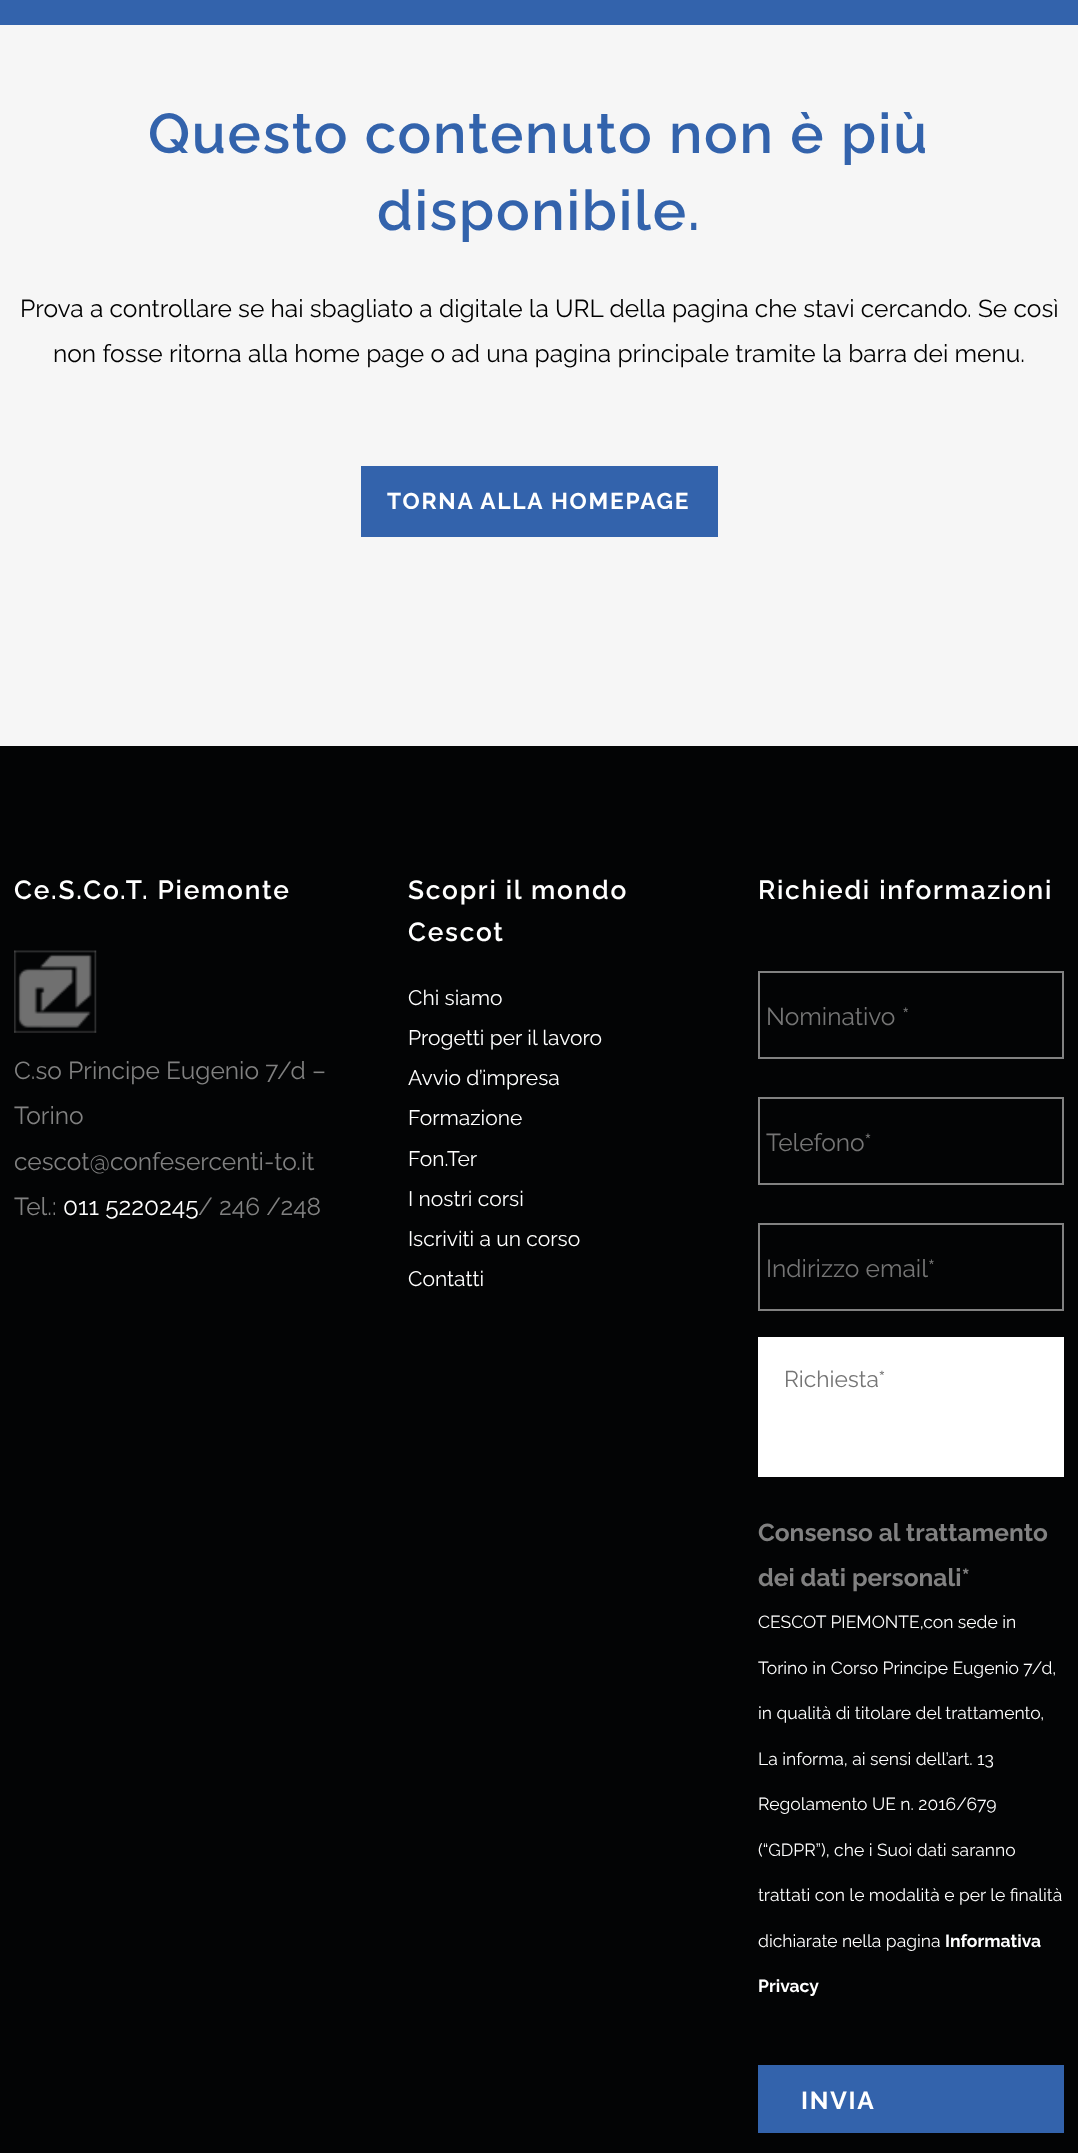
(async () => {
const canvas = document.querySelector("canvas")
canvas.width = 1078
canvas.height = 2153
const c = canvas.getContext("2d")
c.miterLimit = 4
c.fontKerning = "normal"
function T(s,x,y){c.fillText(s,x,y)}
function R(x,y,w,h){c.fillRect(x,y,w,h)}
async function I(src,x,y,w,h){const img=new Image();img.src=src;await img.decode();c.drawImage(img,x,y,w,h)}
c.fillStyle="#f6f6f6"
R(0,0,1078,2153)
c.fillStyle="#3363ac"
R(0,0,1078,25)
c.letterSpacing="1.75px"
c.font="600 56px Raleway"
T("Questo contenuto non è più",148,153)
T("disponibile.",377,230)
c.letterSpacing="0px"
c.font="24.5px Raleway"
c.fillStyle="#000"
T("Prova a controllare se hai sbagliato a digitale la URL della pagina che stavi cercando. Se così",20,317)
T("non fosse ritorna alla home page o ad una pagina principale tramite la barra dei menu.",53,362)
c.fillStyle="#3363ac"
R(361,466,357,71)
c.letterSpacing="1.75px"
c.font="bold 22.75px Raleway"
c.fillStyle="#fff"
T("TORNA ALLA HOMEPAGE",387,509)
c.fillStyle="#030405"
R(0,746,1078,1407)
c.font="600 26.25px Raleway"
c.fillStyle="#fff"
T("Ce.S.Co.T. Piemonte",14,899)
await I("1.png",14,950,83,83)
c.letterSpacing="0px"
c.font="24.5px Raleway"
c.fillStyle="#818181"
T("C.so Principe Eugenio 7/d –",14,1079)
T("Torino",14,1124)
T("cescot@confesercenti-to.it",14,1170)
T("Tel.:",14,1215)
c.fillStyle="#fff"
T("011 5220245",63,1215)
c.fillStyle="#818181"
T("/ 246 /248",198,1215)
c.letterSpacing="1.75px"
c.font="600 26.25px Raleway"
c.fillStyle="#fff"
T("Scopri il mondo",408,899)
T("Cescot",408,941)
c.letterSpacing="0px"
c.font="21px Raleway"
T("Chi siamo",408,1005)
T("Progetti per il lavoro",408,1045)
T("Avvio d’impresa",408,1085)
T("Formazione",408,1125)
T("Fon.Ter",408,1166)
T("I nostri corsi",408,1206)
T("Iscriviti a un corso",408,1246)
T("Contatti",408,1286)
c.letterSpacing="1.75px"
c.font="600 26.25px Raleway"
T("Richiedi informazioni",758,899)
c.strokeStyle="#818181"
c.lineWidth=2
c.strokeRect(759,972,304,86)
c.letterSpacing="0px"
c.font="24.5px Raleway"
c.fillStyle="#757575"
T("Nominativo *",766,1025)
c.strokeRect(759,1098,304,86)
T("Telefono*",766,1151)
c.strokeRect(759,1224,304,86)
T("Indirizzo email*",766,1277)
c.fillStyle="#fff"
R(758,1337,306,140)
c.font="22.75px Raleway"
c.fillStyle="#757575"
T("Richiesta*",784,1387)
c.font="bold 24.5px Raleway"
c.fillStyle="#818181"
T("Consenso al trattamento",758,1541)
T("dei dati personali*",758,1586)
c.font="17.5px Raleway"
c.fillStyle="#fff"
T("CESCOT PIEMONTE,con sede in",758,1628)
T("Torino in Corso Principe Eugenio 7/d,",758,1674)
T("in qualità di titolare del trattamento,",758,1719)
T("La informa, ai sensi dell’art. 13",758,1765)
T("Regolamento UE n. 2016/679",758,1810)
T("(“GDPR”), che i Suoi dati saranno",758,1856)
T("trattati con le modalità e per le finalità",758,1901)
T("dichiarate nella pagina",758,1947)
c.font="bold 17.5px Raleway"
T("Informativa",945,1947)
T("Privacy",758,1992)
c.fillStyle="#3363ac"
R(758,2065,306,68)
c.letterSpacing="1.75px"
c.font="bold 24.5px Raleway"
c.fillStyle="#fff"
T("INVIA",801,2109)
})()
